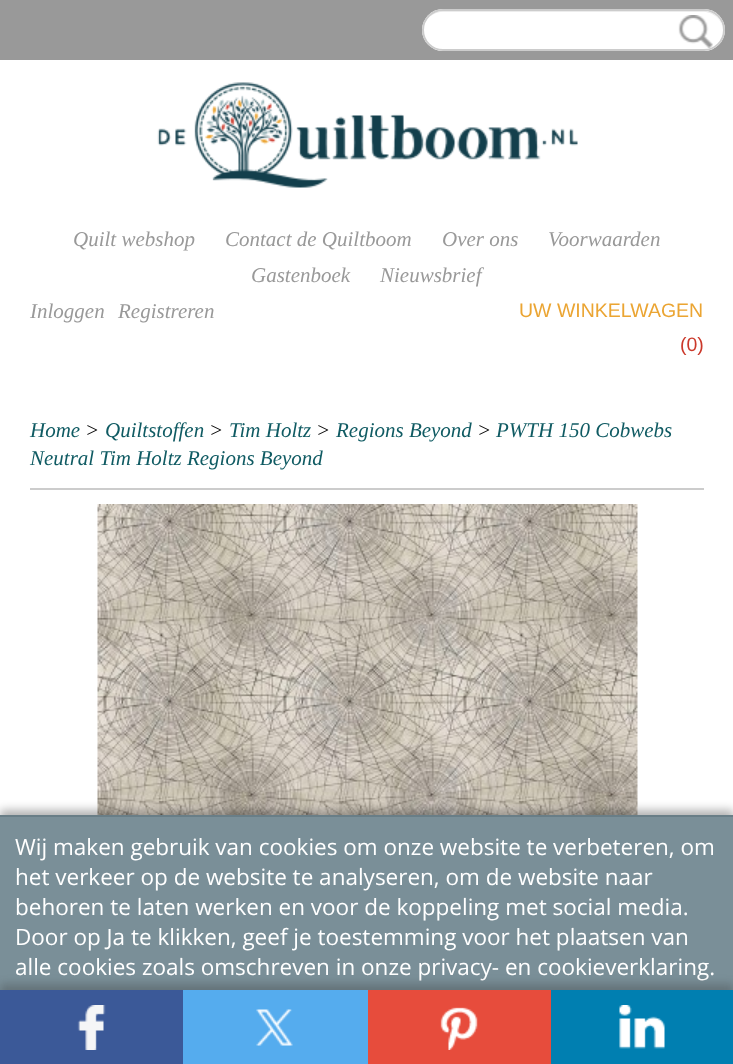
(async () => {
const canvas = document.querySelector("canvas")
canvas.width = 733
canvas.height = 1064
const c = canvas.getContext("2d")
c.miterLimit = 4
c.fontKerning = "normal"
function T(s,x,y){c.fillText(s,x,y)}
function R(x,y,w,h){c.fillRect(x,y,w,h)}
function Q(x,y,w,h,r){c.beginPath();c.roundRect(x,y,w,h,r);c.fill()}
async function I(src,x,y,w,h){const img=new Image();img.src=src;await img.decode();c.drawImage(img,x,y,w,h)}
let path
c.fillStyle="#fff"
R(0,0,733,1064)
c.fillStyle="#999"
R(0,0,733,60)
c.fillStyle="#fff"
Q(422,9,303,42,21)
c.fillStyle="#ececec"
path = new Path2D("M442 12h262c10 0 19 9 19 19c0-11-9-20-19-20h-262c-10 0-19 9-19 20c0-10 9-19 19-19z")
c.fill(path)
c.beginPath()
c.roundRect(423,10,301,40,20)
c.strokeStyle="#ccc"
c.lineWidth=2
c.stroke()
await I("1.png",678,15,35,33)
await I("2.png",157,82,421,106)
c.font="italic 21px Liberation Serif"
c.fillStyle="#999"
T("Quilt webshop",73,246)
T("Contact de Quiltboom",225,246)
T("Over ons",442,246)
T("Voorwaarden",548,246)
T("Gastenboek",251,282)
T("Nieuwsbrief",380,282)
T("Inloggen",30,318)
T("Registreren",118,318)
c.font="19.5px Liberation Sans"
c.fillStyle="#eba533"
T("UW WINKELWAGEN",519,317)
c.fillStyle="#cb382a"
T("(0)",680,351)
c.fillStyle="#ccc"
R(30,488,674,2)
c.font="italic 21px Liberation Serif"
c.fillStyle="#105b63"
T("Home",30,437)
c.fillStyle="#000"
T(">",85,437)
c.fillStyle="#105b63"
T("Quiltstoffen",105,437)
c.fillStyle="#000"
T(">",209,437)
c.fillStyle="#105b63"
T("Tim Holtz",229,437)
c.fillStyle="#000"
T(">",316,437)
c.fillStyle="#105b63"
T("Regions Beyond",336,437)
c.fillStyle="#000"
T(">",477,437)
c.fillStyle="#105b63"
T("PWTH 150 Cobwebs",496,437)
T("Neutral Tim Holtz Regions Beyond",30,465)
await I("3.png",97,504,541,311)
c.fillStyle="#0000004d"
c.filter="blur(5px)"
c.beginPath()
c.rect(0,810,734,251)
c.fill()
c.filter="none"
c.fillStyle="#7a8f98"
R(0,817,733,173)
c.fillStyle="#697e87"
R(0,815,733,2)
c.font="22.5px Open Sans"
c.fillStyle="#fff"
T("Wij maken gebruik van cookies om onze website te verbeteren, om",15,855)
T("het verkeer op de website te analyseren, om de website naar",15,885)
T("behoren te laten werken en voor de koppeling met social media.",15,915)
T("Door op Ja te klikken, geef je toestemming voor het plaatsen van",15,945)
T("alle cookies zoals omschreven in onze privacy- en cookieverklaring.",15,975)
c.fillStyle="#3232324d"
c.filter="blur(4px)"
c.beginPath()
c.rect(0,984,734,75)
c.fill()
c.filter="none"
c.fillStyle="#3b5998"
R(0,990,183,74)
await I("4.png",77,1005,29,45)
c.fillStyle="#55acee"
R(183,990,185,74)
await I("5.png",256,1009,37,37)
c.fillStyle="#e74c3c"
R(368,990,183,74)
await I("6.png",440,1007,38,43)
c.fillStyle="#007fb1"
R(551,990,182,74)
await I("7.png",619,1005,46,44)
})()
